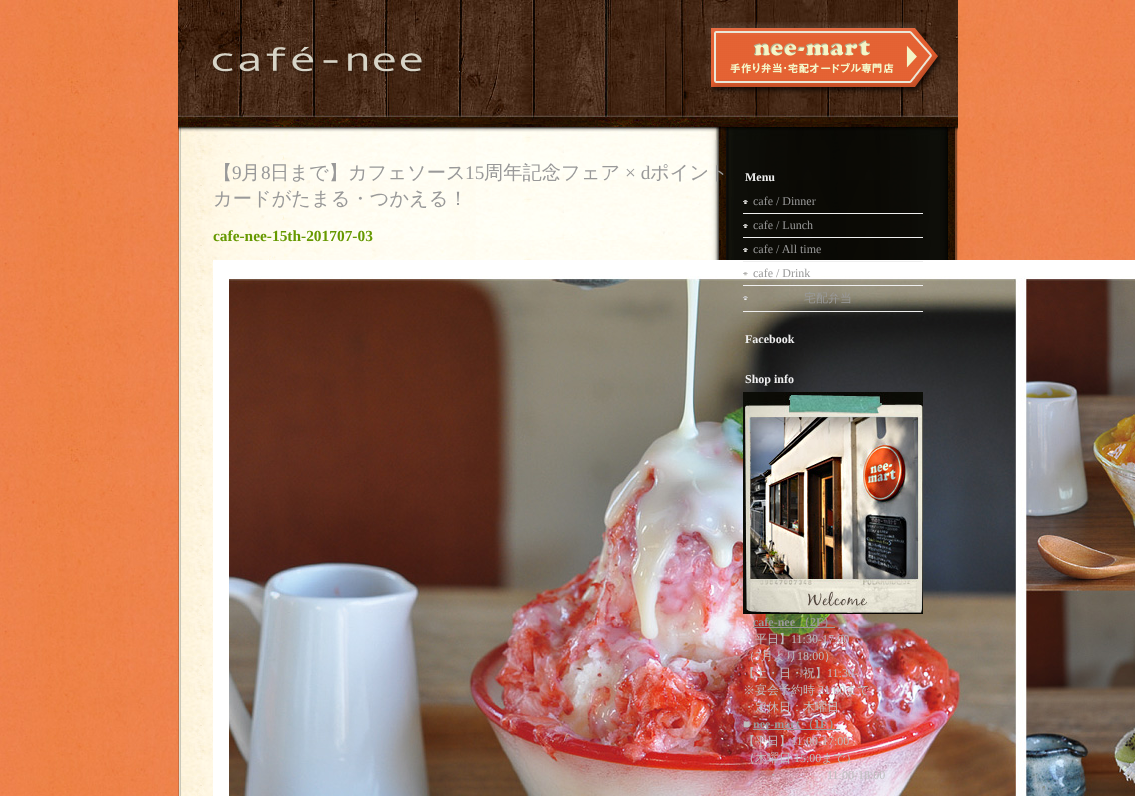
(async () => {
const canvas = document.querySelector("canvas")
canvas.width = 1135
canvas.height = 796
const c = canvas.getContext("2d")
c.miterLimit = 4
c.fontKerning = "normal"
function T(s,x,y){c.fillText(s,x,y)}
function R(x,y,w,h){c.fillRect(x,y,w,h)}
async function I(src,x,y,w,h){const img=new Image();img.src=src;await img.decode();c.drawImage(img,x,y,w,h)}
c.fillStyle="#fff"
R(0,0,1135,796)
await I("1.png",0,0,1135,796)
await I("2.png",178,140,780,656)
await I("3.png",178,0,780,140)
await I("4.png",212,47,211,27)
await I("5.png",706,22,236,72)
c.font="500 19.25px WenQuanYi Zen Hei"
c.fillStyle="#999"
T("【",213,179)
c.font="19.25px Liberation Serif"
T("9",232,179)
c.font="500 19.25px WenQuanYi Zen Hei"
T("月",241,179)
c.font="19.25px Liberation Serif"
T("8",261,179)
c.font="500 19.25px WenQuanYi Zen Hei"
T("日まで】カフェソース",270,179)
c.font="19.25px Liberation Serif"
T("15",465,179)
c.font="500 19.25px WenQuanYi Zen Hei"
T("周年記念フェア",484,179)
c.font="19.25px Liberation Serif"
T("× d",625,179)
c.font="500 19.25px WenQuanYi Zen Hei"
T("ポイント",650,179)
T("カードがたまる・つかえる！",213,205)
c.font="bold 15.4px Liberation Serif"
c.fillStyle="#690"
T("cafe-nee-15th-201707-03",213,241)
await I("6.png",213,260,922,536)
c.font="bold 12px Liberation Serif"
c.fillStyle="#eee"
T("Menu",745,181)
await I("7.png",743,200,5,4)
c.fillStyle="#efefef"
R(743,213,180,1)
c.font="12px Liberation Serif"
c.fillStyle="#999"
T("cafe / Dinner",753,205)
await I("7.png",743,224,5,4)
c.fillStyle="#efefef"
R(743,237,180,1)
c.fillStyle="#999"
T("cafe / Lunch",753,229)
await I("8.png",743,248,5,4)
c.fillStyle="#efefef"
R(743,261,180,1)
c.fillStyle="#999"
T("cafe / All time",753,253)
await I("9.png",743,272,5,4)
c.fillStyle="#efefef"
R(743,285,180,1)
c.fillStyle="#999"
T("cafe / Drink",753,277)
await I("10.png",743,296,5,4)
c.fillStyle="#efefef"
R(743,311,180,1)
c.font="500 12px WenQuanYi Zen Hei"
c.fillStyle="#999"
T("宅配弁当",804,302)
c.font="bold 12px Liberation Serif"
c.fillStyle="#eee"
T("Facebook",745,343)
T("Shop info",745,383)
await I("11.png",743,392,180,222)
c.fillStyle="#999"
T("cafe-nee",753,626)
R(753,627,82,1)
c.font="bold 12px WenQuanYi Zen Hei"
T("（",798,626)
c.font="bold 12px Liberation Serif"
T("2F",810,626)
c.font="bold 12px WenQuanYi Zen Hei"
T("）",823,626)
c.font="500 12px WenQuanYi Zen Hei"
c.fillStyle="#bebebe"
T("平日】",755,643)
c.font="12px Liberation Serif"
T("11:30-17:00",791,643)
c.font="500 12px WenQuanYi Zen Hei"
T("（",743,660)
c.font="12px Liberation Serif"
T("7",755,660)
c.font="500 12px WenQuanYi Zen Hei"
T("月より",761,660)
c.font="12px Liberation Serif"
T("18:00",797,660)
c.font="500 12px WenQuanYi Zen Hei"
T("）",824,660)
T("【土・日・祝】",743,677)
c.font="12px Liberation Serif"
T("11:30-",827,677)
c.font="500 12px WenQuanYi Zen Hei"
T("※宴会予約時",743,694)
c.font="12px Liberation Serif"
T("21:00",818,694)
c.font="500 12px WenQuanYi Zen Hei"
T("まで",845,694)
T("・定休日：木曜日",743,711)
c.font="bold 12px Liberation Serif"
T("■",743,728)
c.fillStyle="#999"
T("nee-mart",753,728)
R(753,729,87,1)
c.font="bold 12px WenQuanYi Zen Hei"
T("（",802,728)
c.font="bold 12px Liberation Serif"
T("1F",814,728)
c.font="bold 12px WenQuanYi Zen Hei"
T("）",828,728)
c.font="500 12px WenQuanYi Zen Hei"
c.fillStyle="#bebebe"
T("【平日】",743,745)
c.font="12px Liberation Serif"
T("11:00-17:00",791,745)
c.font="500 12px WenQuanYi Zen Hei"
T("（木曜日",743,762)
c.font="12px Liberation Serif"
T("15:00",794,762)
c.font="500 12px WenQuanYi Zen Hei"
T("まで）",821,762)
T("・",767,779)
c.font="12px Liberation Serif"
T("11:00-18:00",827,779)
})()
